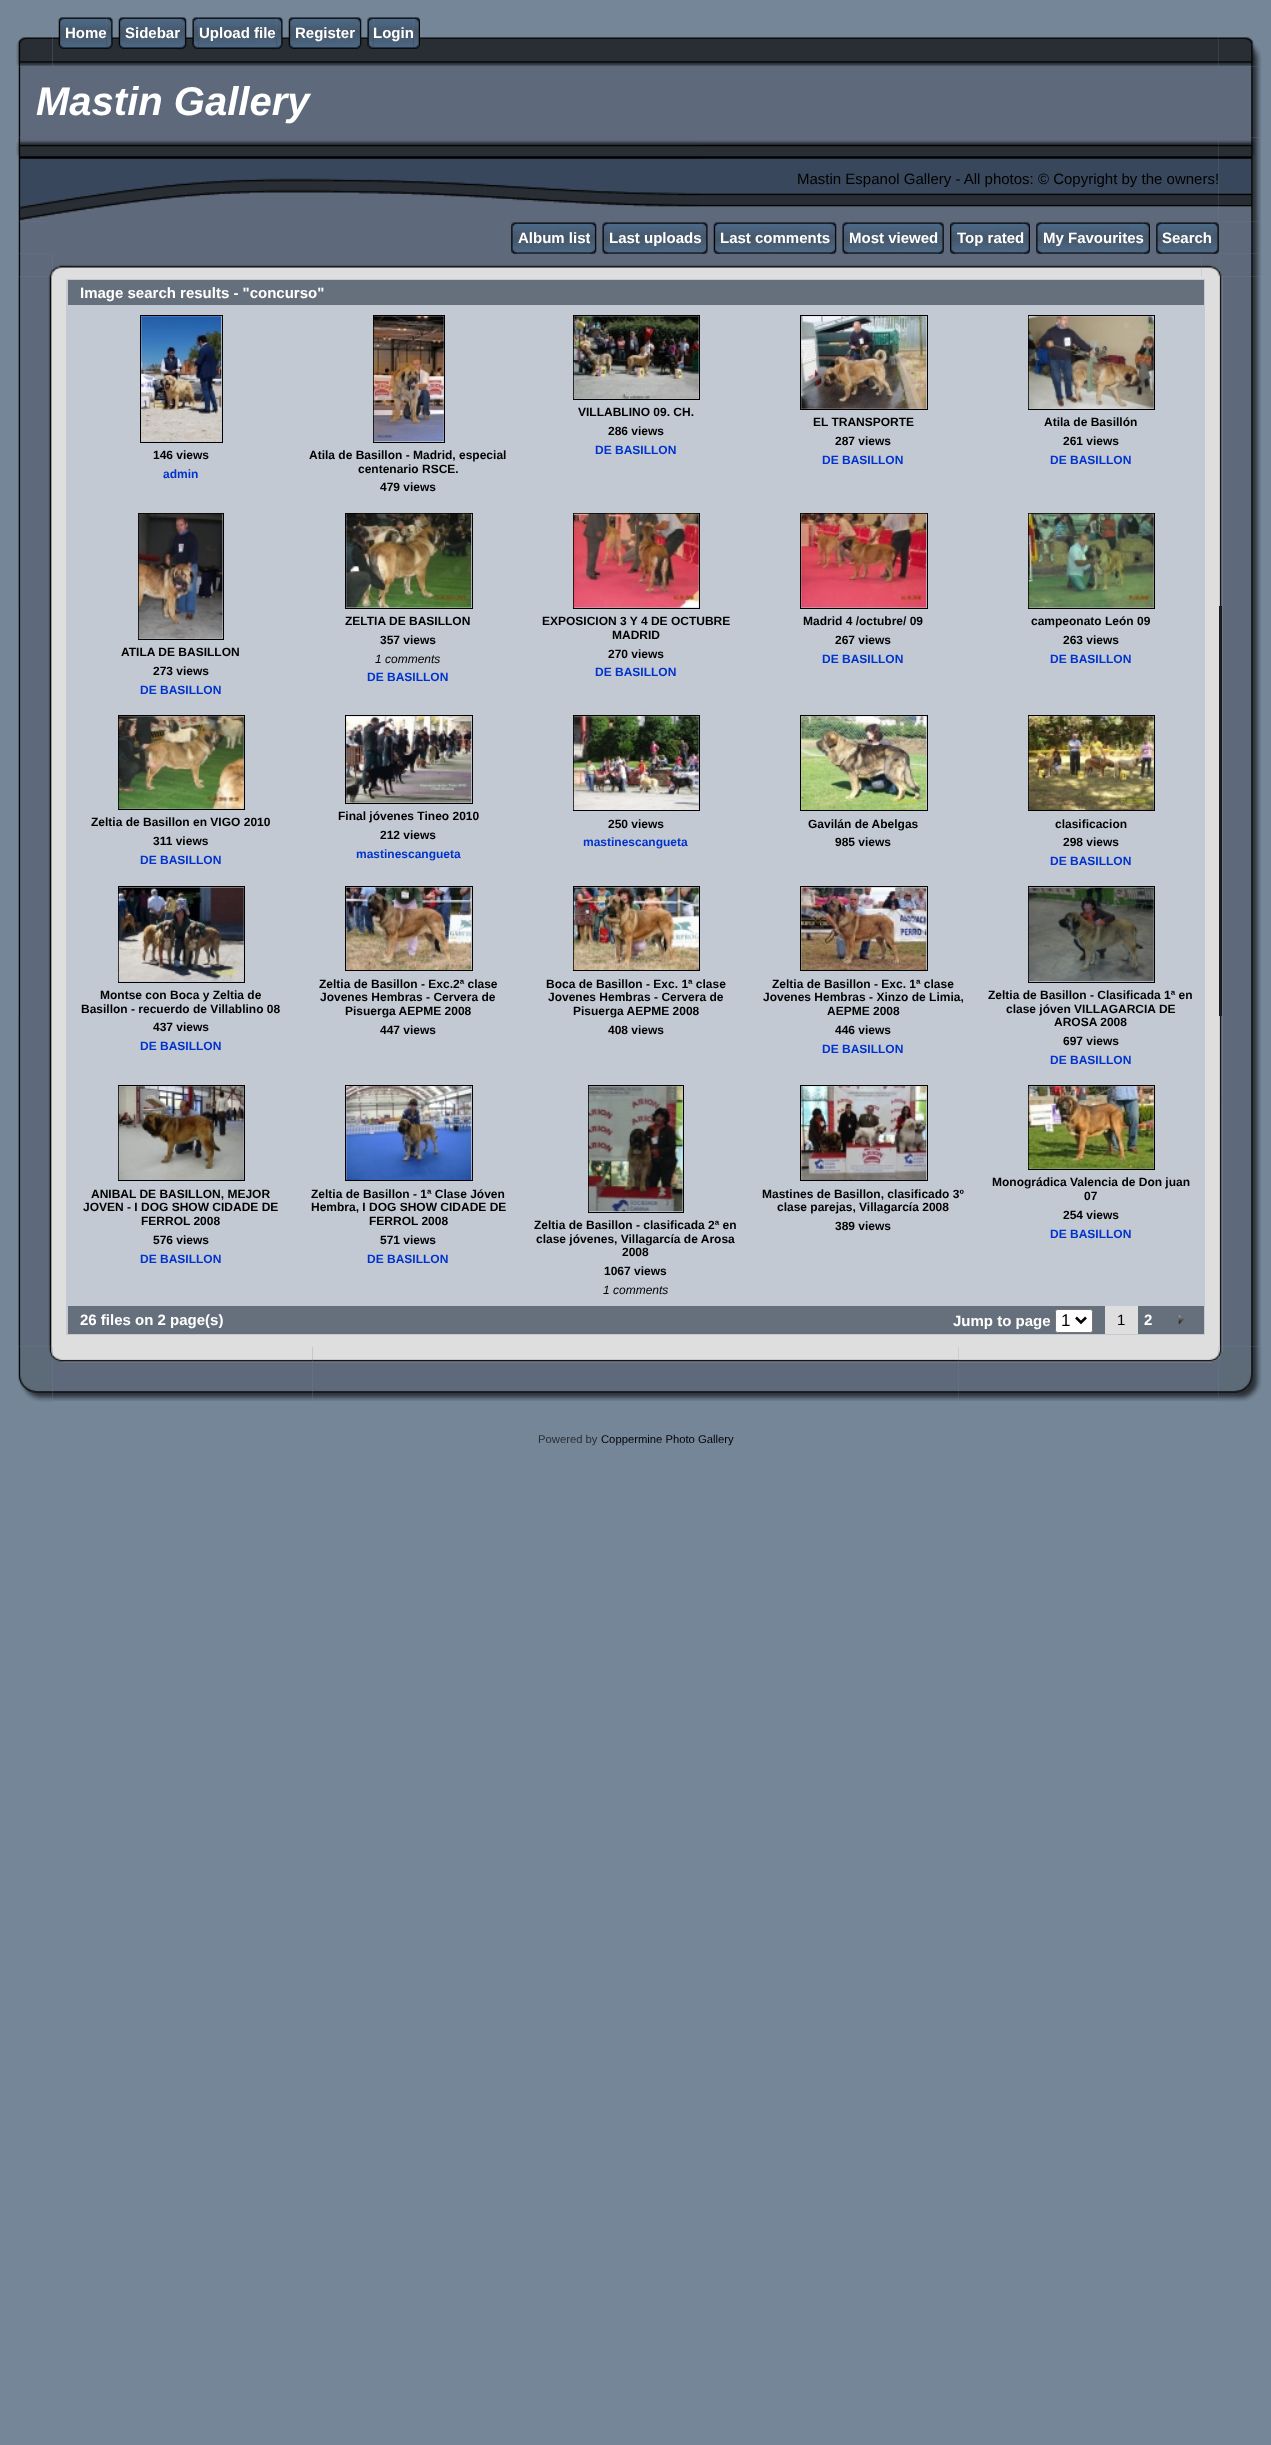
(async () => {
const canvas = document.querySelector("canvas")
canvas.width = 1271
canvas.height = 2445
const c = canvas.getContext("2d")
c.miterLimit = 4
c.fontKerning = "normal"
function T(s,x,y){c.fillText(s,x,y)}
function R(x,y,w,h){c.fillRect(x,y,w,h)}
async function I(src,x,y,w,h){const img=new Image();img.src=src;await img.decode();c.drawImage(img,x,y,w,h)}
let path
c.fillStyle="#758698"
R(0,0,1271,2445)
await I("15.png",16,37,37,30)
await I("1.png",52,37,1167,29)
await I("2.png",58,17,7,32)
await I("3.png",65,17,42,32)
c.font="bold 15px Liberation Sans"
c.fillStyle="#fff"
T("Home",65,38)
await I("4.png",106,17,7,32)
await I("5.png",118,17,7,32)
await I("6.png",125,17,55,32)
T("Sidebar",125,38)
await I("7.png",180,17,7,32)
await I("9.png",198,17,79,32)
await I("8.png",192,17,7,32)
T("Upload file",199,38)
await I("10.png",276,17,7,32)
await I("5.png",288,17,7,32)
await I("11.png",295,17,60,32)
T("Register",295,38)
await I("7.png",355,17,7,32)
await I("13.png",373,17,41,32)
await I("12.png",367,17,7,32)
T("Login",373,38)
await I("14.png",413,17,7,32)
await I("16.png",1218,37,44,30)
await I("17.png",18,66,4,72)
c.fillStyle="#5e697b"
R(22,66,1230,72)
c.font="italic bold 40px Liberation Sans"
c.fillStyle="#fff"
T("Mastin Gallery",36,115)
await I("18.png",1251,66,10,72)
await I("19.png",16,137,684,85)
await I("20.png",700,138,519,83)
c.font="15px Liberation Sans"
c.fillStyle="#000"
T("Mastin Espanol Gallery - All photos: © Copyright by the owners!",797,184)
await I("21.png",1218,137,43,85)
await I("22.png",18,221,34,33)
c.fillStyle="#5e697b"
R(52,221,1167,33)
await I("24.png",517,222,73,32)
await I("27.png",608,222,94,32)
await I("30.png",720,222,110,32)
await I("32.png",848,222,90,32)
await I("35.png",956,222,68,32)
await I("38.png",1042,222,102,32)
await I("40.png",1162,222,51,32)
await I("45.png",70,253,1132,23)
await I("23.png",511,222,7,32)
c.font="bold 15px Liberation Sans"
c.fillStyle="#fff"
T("Album list",518,243)
await I("25.png",590,222,7,32)
await I("26.png",602,222,7,32)
T("Last uploads",609,243)
await I("28.png",701,222,7,32)
await I("29.png",713,222,7,32)
T("Last comments",720,243)
await I("31.png",830,222,7,32)
await I("26.png",842,222,7,32)
T("Most viewed",849,243)
await I("33.png",937,222,7,32)
await I("34.png",950,222,7,32)
T("Top rated",957,243)
await I("36.png",1023,222,7,32)
await I("37.png",1036,222,7,32)
T("My Favourites",1043,243)
await I("39.png",1143,222,7,32)
await I("23.png",1156,222,7,32)
T("Search",1162,243)
await I("46.png",1201,253,18,23)
await I("42.png",1219,221,42,33)
await I("47.png",1218,253,43,24)
await I("41.png",1212,222,7,32)
await I("43.png",18,253,35,24)
await I("44.png",52,254,18,22)
await I("48.png",18,276,34,1071)
await I("49.png",18,606,2,410)
c.fillStyle="#dedede"
R(52,276,1167,1071)
c.fillStyle="#c2c9d3"
R(66,279,1139,1056)
c.fillStyle="#66707c"
R(68,280,1136,25)
c.fillStyle="#fff"
T("Image search results - \"concurso\"",80,298)
c.strokeStyle="#000"
c.strokeRect(140.5,315.5,82,127)
await I("50.png",141,316,81,126)
c.font="bold 12px Liberation Sans"
c.fillStyle="#000"
T("146 views",153,459)
c.fillStyle="#03c"
T("admin",163,478)
c.strokeRect(373.5,315.5,71,127)
await I("51.png",373,316,71,126)
c.fillStyle="#000"
T("Atila de Basillon - Madrid, especial",309,459)
T("centenario RSCE.",358,473)
T("479 views",380,491)
c.strokeRect(573.5,315.5,126,84)
await I("52.png",573,316,126,83)
T("VILLABLINO 09. CH.",578,416)
T("286 views",608,435)
c.fillStyle="#03c"
T("DE BASILLON",595,454)
c.strokeRect(800.5,315.5,127,94)
await I("53.png",801,316,126,93)
c.fillStyle="#000"
T("EL TRANSPORTE",813,426)
T("287 views",835,445)
c.fillStyle="#03c"
T("DE BASILLON",822,464)
c.strokeRect(1028.5,315.5,126,94)
await I("54.png",1028,316,126,93)
c.fillStyle="#000"
T("Atila de Basillón",1044,426)
T("261 views",1063,445)
c.fillStyle="#03c"
T("DE BASILLON",1050,464)
c.strokeRect(345.5,513.5,127,95)
await I("55.png",346,513,126,95)
c.fillStyle="#000"
T("ZELTIA DE BASILLON",345,625)
T("357 views",380,644)
c.font="italic 12px Liberation Sans"
T("1 comments",375,663)
c.font="bold 12px Liberation Sans"
c.fillStyle="#03c"
T("DE BASILLON",367,681)
c.strokeRect(573.5,513.5,126,95)
await I("56.png",573,513,126,95)
c.fillStyle="#000"
T("EXPOSICION 3 Y 4 DE OCTUBRE",542,625)
T("MADRID",612,639)
T("270 views",608,658)
c.fillStyle="#03c"
T("DE BASILLON",595,676)
c.strokeRect(800.5,513.5,127,95)
await I("57.png",801,513,126,95)
c.fillStyle="#000"
T("Madrid 4 /octubre/ 09",803,625)
T("267 views",835,644)
c.fillStyle="#03c"
T("DE BASILLON",822,663)
c.strokeRect(1028.5,513.5,126,95)
await I("58.png",1028,513,126,95)
c.fillStyle="#000"
T("campeonato León 09",1031,625)
T("263 views",1063,644)
c.fillStyle="#03c"
T("DE BASILLON",1050,663)
c.strokeRect(138.5,513.5,85,126)
await I("59.png",138,513,85,126)
c.fillStyle="#000"
T("ATILA DE BASILLON",121,656)
T("273 views",153,675)
c.fillStyle="#03c"
T("DE BASILLON",140,694)
c.strokeRect(118.5,715.5,126,94)
await I("60.png",118,716,126,93)
c.fillStyle="#000"
T("Zeltia de Basillon en VIGO 2010",91,826)
T("311 views",153,845)
c.fillStyle="#03c"
T("DE BASILLON",140,864)
c.strokeRect(345.5,715.5,127,88)
await I("61.png",346,716,126,87)
c.fillStyle="#000"
T("Final jóvenes Tineo 2010",338,820)
T("212 views",380,839)
c.fillStyle="#03c"
T("mastinescangueta",356,858)
c.strokeRect(573.5,715.5,126,95)
await I("62.png",573,716,126,94)
c.fillStyle="#000"
T("250 views",608,828)
c.fillStyle="#03c"
T("mastinescangueta",583,846)
c.strokeRect(800.5,715.5,127,95)
await I("63.png",801,716,126,94)
c.fillStyle="#000"
T("Gavilán de Abelgas",808,828)
T("985 views",835,846)
c.strokeRect(1028.5,715.5,126,95)
await I("64.png",1028,716,126,94)
T("clasificacion",1055,828)
T("298 views",1063,846)
c.fillStyle="#03c"
T("DE BASILLON",1050,865)
c.strokeRect(118.5,886.5,126,96)
await I("65.png",118,887,126,95)
c.fillStyle="#000"
T("Montse con Boca y Zeltia de",100,999)
T("Basillon - recuerdo de Villablino 08",81,1013)
T("437 views",153,1031)
c.fillStyle="#03c"
T("DE BASILLON",140,1050)
c.strokeRect(345.5,886.5,127,84)
await I("66.png",346,887,126,83)
c.fillStyle="#000"
T("Zeltia de Basillon - Exc.2ª clase",319,988)
T("Jovenes Hembras - Cervera de",320,1001)
T("Pisuerga AEPME 2008",345,1015)
T("447 views",380,1034)
c.strokeRect(573.5,886.5,126,84)
await I("67.png",573,887,126,83)
T("Boca de Basillon - Exc. 1ª clase",546,988)
T("Jovenes Hembras - Cervera de",548,1001)
T("Pisuerga AEPME 2008",573,1015)
T("408 views",608,1034)
c.strokeRect(800.5,886.5,127,84)
await I("68.png",801,887,126,83)
T("Zeltia de Basillon - Exc. 1ª clase",772,988)
T("Jovenes Hembras - Xinzo de Limia,",763,1001)
T("AEPME 2008",827,1015)
T("446 views",835,1034)
c.fillStyle="#03c"
T("DE BASILLON",822,1053)
c.strokeRect(1028.5,886.5,126,96)
await I("69.png",1028,887,126,95)
c.fillStyle="#000"
T("Zeltia de Basillon - Clasificada 1ª en",988,999)
T("clase jóven VILLAGARCIA DE",1006,1013)
T("AROSA 2008",1054,1026)
T("697 views",1063,1045)
c.fillStyle="#03c"
T("DE BASILLON",1050,1064)
c.strokeRect(118.5,1085.5,126,95)
await I("70.png",118,1086,126,94)
c.fillStyle="#000"
T("ANIBAL DE BASILLON, MEJOR",91,1198)
T("JOVEN - I DOG SHOW CIDADE DE",83,1211)
T("FERROL 2008",141,1225)
T("576 views",153,1244)
c.fillStyle="#03c"
T("DE BASILLON",140,1263)
c.strokeRect(345.5,1085.5,127,95)
await I("71.png",346,1086,126,94)
c.fillStyle="#000"
T("Zeltia de Basillon - 1ª Clase Jóven",311,1198)
T("Hembra, I DOG SHOW CIDADE DE",311,1211)
T("FERROL 2008",369,1225)
T("571 views",380,1244)
c.fillStyle="#03c"
T("DE BASILLON",367,1263)
c.strokeRect(800.5,1085.5,127,95)
await I("72.png",801,1086,126,94)
c.fillStyle="#000"
T("Mastines de Basillon, clasificado 3º",762,1198)
T("clase parejas, Villagarcía 2008",777,1211)
T("389 views",835,1230)
c.strokeRect(1028.5,1085.5,126,84)
await I("73.png",1028,1086,126,83)
T("Monográdica Valencia de Don juan",992,1186)
T("07",1084,1200)
T("254 views",1063,1219)
c.fillStyle="#03c"
T("DE BASILLON",1050,1238)
c.strokeRect(588.5,1085.5,95,127)
await I("74.png",588,1086,95,126)
c.fillStyle="#000"
T("Zeltia de Basillon - clasificada 2ª en",534,1229)
T("clase jóvenes, Villagarcía de Arosa",536,1243)
T("2008",622,1256)
T("1067 views",604,1275)
c.font="italic 12px Liberation Sans"
T("1 comments",603,1294)
c.fillStyle="#66707c"
R(68,1306,1037,28)
c.font="bold 15px Liberation Sans"
c.fillStyle="#fff"
T("26 files on 2 page(s)",80,1325)
T("Jump to page",953,1326)
c.beginPath()
c.roundRect(1055.5,1309.5,37,23,2)
c.fill()
c.strokeStyle="#767676"
c.stroke()
path = new Path2D("M1076 1317.5l5 5l5-5")
c.strokeStyle="#000"
c.lineWidth=2.5
c.stroke(path)
c.font="17px Liberation Sans"
c.fillStyle="#000"
T("1",1061,1326)
c.fillStyle="#dedede"
R(1105,1306,33,28)
c.font="15px Liberation Sans"
c.fillStyle="#000"
T("1",1117,1325)
c.fillStyle="#66707c"
R(1138,1306,66,28)
c.font="bold 15px Liberation Sans"
c.fillStyle="#fff"
T("2",1144,1325)
await I("75.png",1178,1315,6,9)
await I("76.png",1219,276,42,1071)
c.fillStyle="#1b1b1b"
R(1219,606,3,410)
await I("77.png",18,1346,35,56)
await I("78.png",52,1347,261,54)
await I("79.png",312,1347,647,54)
await I("80.png",958,1347,261,54)
await I("81.png",1218,1346,44,56)
c.font="11.25px Liberation Sans"
c.fillStyle="#292e34"
T("Powered by",538,1443)
c.fillStyle="#000"
T("Coppermine Photo Gallery",601,1443)
})()
